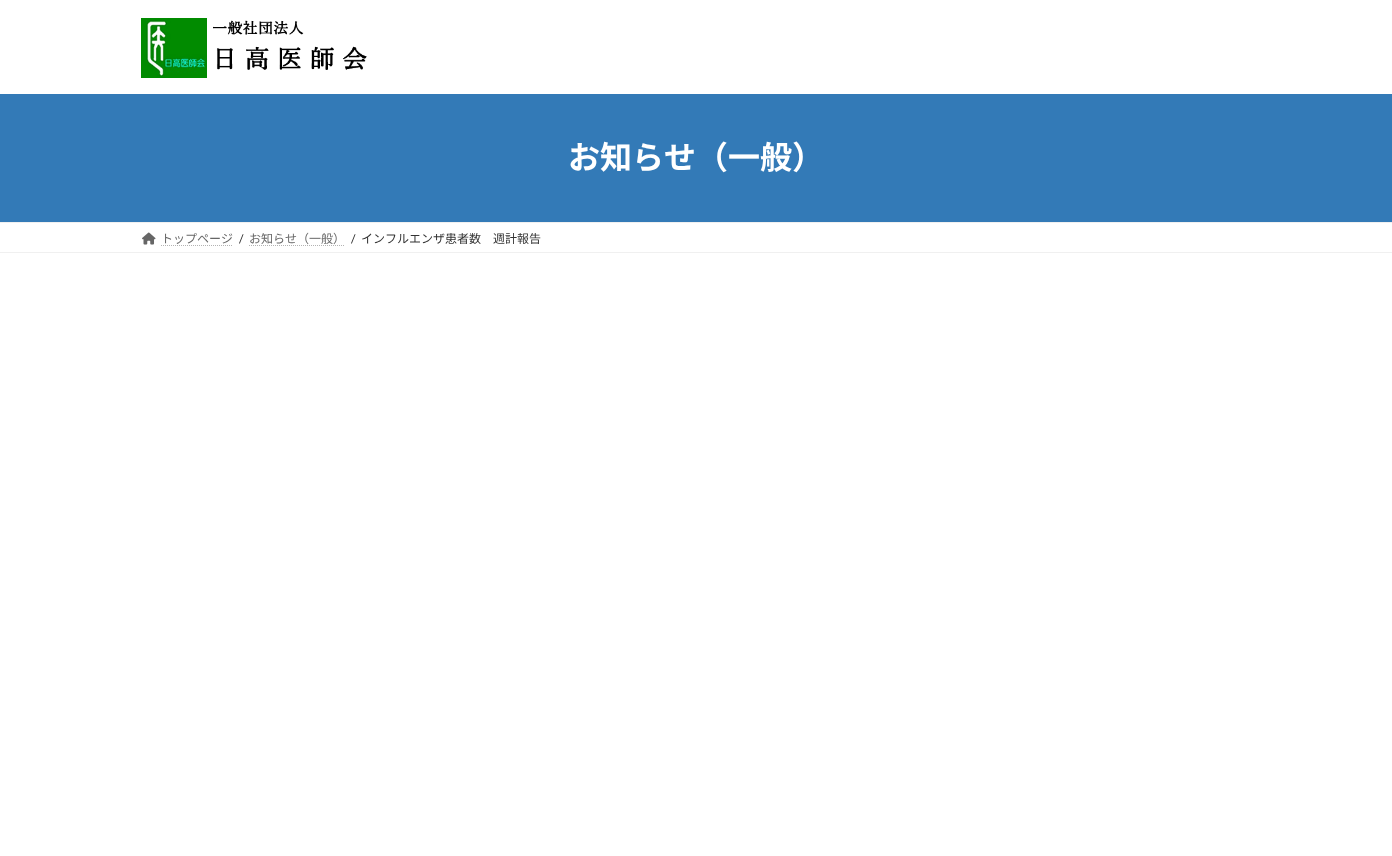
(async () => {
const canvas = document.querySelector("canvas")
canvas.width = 1392
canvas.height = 856
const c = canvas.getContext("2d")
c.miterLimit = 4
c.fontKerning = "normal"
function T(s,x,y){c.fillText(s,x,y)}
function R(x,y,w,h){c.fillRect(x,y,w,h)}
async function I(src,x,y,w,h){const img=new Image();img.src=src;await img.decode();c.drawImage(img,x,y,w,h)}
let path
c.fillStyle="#fff"
R(0,0,1392,856)
await I("1.png",141,18,226,60)
c.fillStyle="#337ab7"
R(0,94,1392,128)
c.font="bold 32px Noto Sans JP"
c.fillStyle="#fff"
T("お知らせ（一般）",568,169)
c.fillStyle="#f0f0f0"
R(0,222,1392,1)
R(0,252,1392,1)
await I("2.png",142,232,14,13)
c.font="12px Noto Sans JP"
c.fillStyle="#666"
T("トップページ",161,243)
path = new Path2D("M161 245.5h71.5")
c.strokeStyle="#b3b3b3"
c.setLineDash([1,1])
c.stroke(path)
c.font="12px Lato"
c.fillStyle="#333"
T("/",239,243)
c.font="12px Noto Sans JP"
c.fillStyle="#666"
T("お知らせ（一般）",249,243)
path = new Path2D("M249 245.5h96")
c.stroke(path)
c.font="12px Lato"
c.fillStyle="#333"
T("/",351,243)
c.font="12px Noto Sans JP"
T("インフルエンザ患者数　週計報告",361,243)
})()
